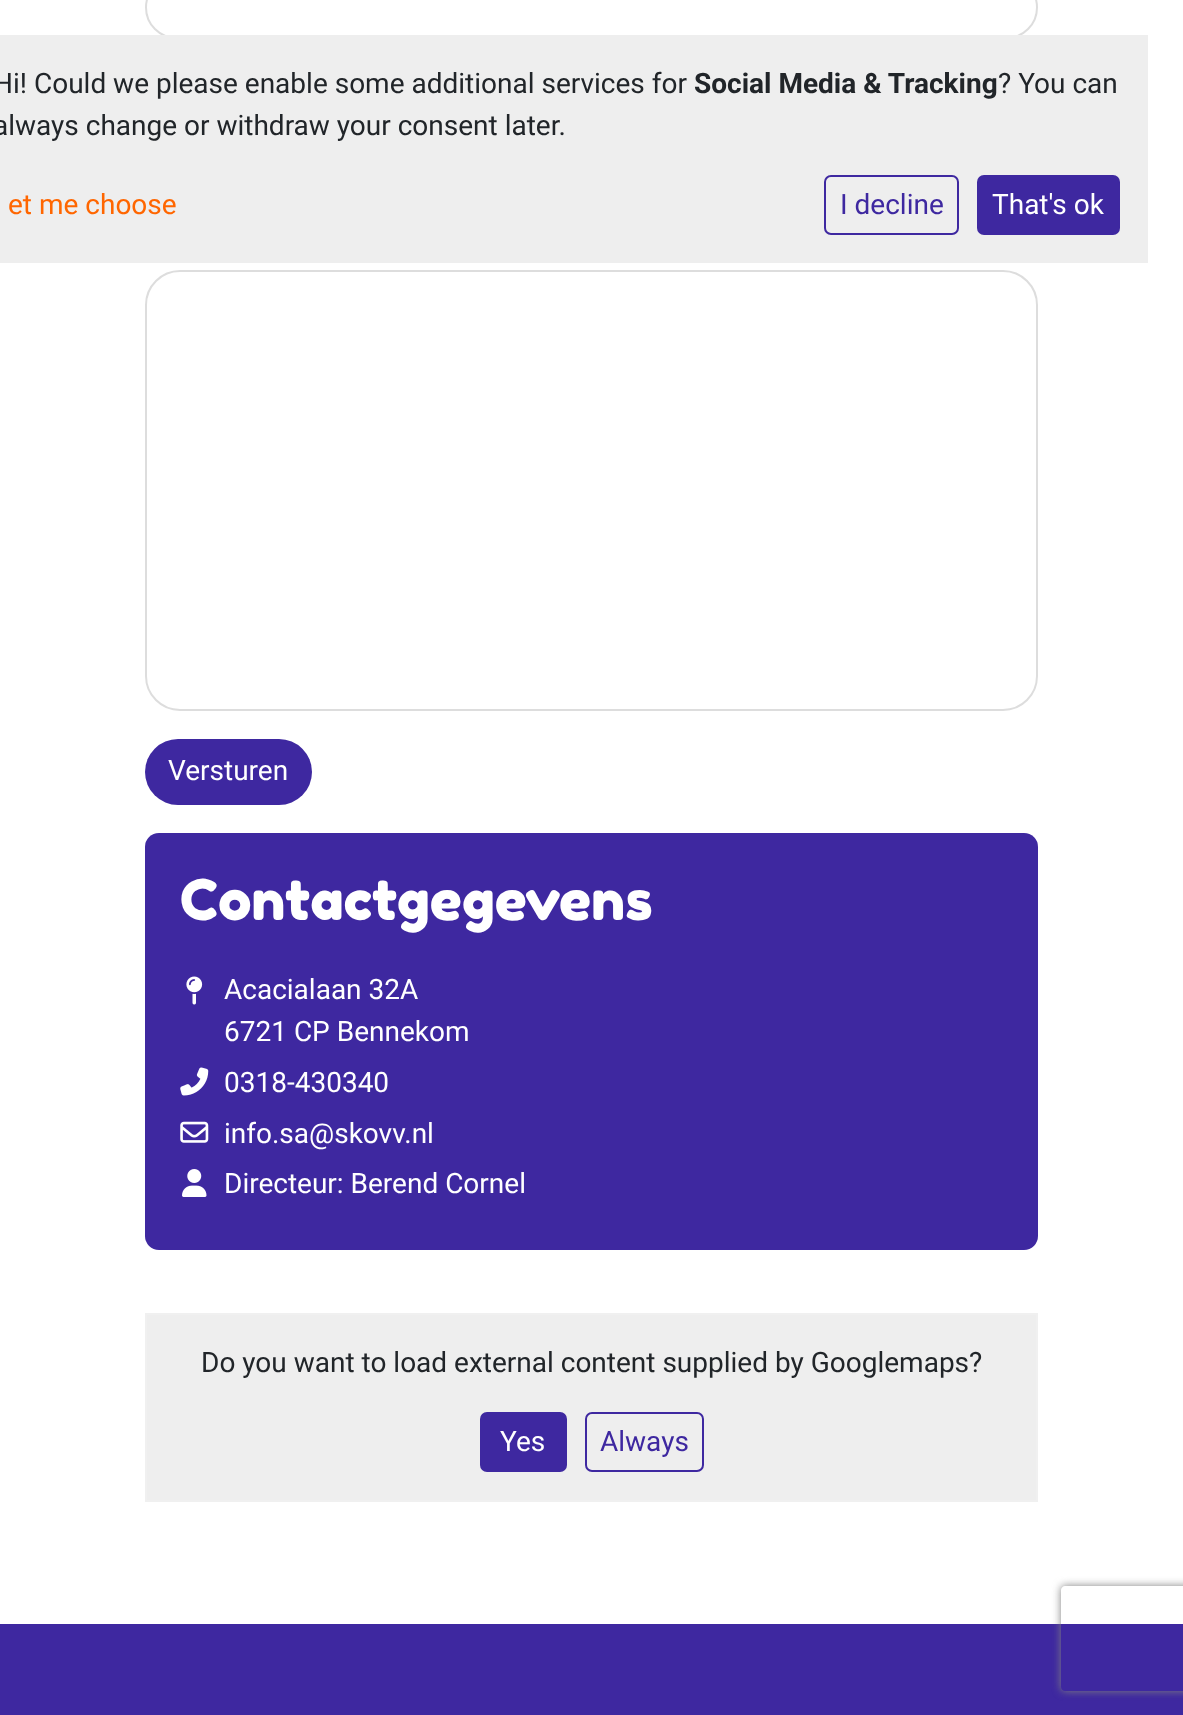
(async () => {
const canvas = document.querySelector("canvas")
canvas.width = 1183
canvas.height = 1715
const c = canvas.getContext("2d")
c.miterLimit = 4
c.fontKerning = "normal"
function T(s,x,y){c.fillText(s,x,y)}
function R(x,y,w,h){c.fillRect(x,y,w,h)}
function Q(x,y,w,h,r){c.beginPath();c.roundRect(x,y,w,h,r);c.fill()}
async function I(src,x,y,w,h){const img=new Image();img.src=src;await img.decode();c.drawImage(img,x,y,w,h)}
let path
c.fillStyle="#fff"
R(0,0,1183,1715)
c.beginPath()
c.roundRect(146,-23,891,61,30.5)
c.strokeStyle="#ddd"
c.lineWidth=2
c.stroke()
c.fillStyle="#eee"
R(0,35,1148,228)
c.font="28px Roboto"
c.fillStyle="#212529"
T("Hi! Could we please enable some additional services for",-7,93)
c.font="bold 28px Roboto"
T("Social Media & Tracking",694,93)
c.font="28px Roboto"
T("? You can",998,93)
T("always change or withdraw your consent later.",-7,135)
c.fillStyle="#f60"
T("et me choose",8,214)
c.beginPath()
c.roundRect(825,176,133,58,6)
c.strokeStyle="#3e28a0"
c.stroke()
c.fillStyle="#3e28a0"
T("I decline",840,214)
Q(977,175,143,60,7)
c.fillStyle="#fff"
T("That's ok",992,214)
c.beginPath()
c.roundRect(146,271,891,439,34)
c.strokeStyle="#ddd"
c.stroke()
c.fillStyle="#3e28a0"
Q(145,739,167,66,33)
c.fillStyle="#fff"
T("Versturen",168,780)
c.fillStyle="#3e28a0"
Q(145,833,893,417,14)
c.font="56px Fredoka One"
c.fillStyle="#fff"
T("Contactgegevens",180,920)
await I("1.png",186,976,17,29)
c.font="28px Roboto"
T("Acacialaan 32A",224,999)
T("6721 CP Bennekom",224,1041)
await I("2.png",180,1067,29,29)
T("0318-430340",224,1092)
await I("3.png",180,1121,29,22)
T("info.sa@skovv.nl",224,1143)
await I("4.png",182,1169,25,28)
T("Directeur: Berend Cornel",224,1193)
c.fillStyle="#eee"
c.beginPath()
c.rect(146,1314,891,187)
c.fill()
c.strokeStyle="#f0f0f0"
c.stroke()
c.fillStyle="#212529"
T("Do you want to load external content supplied by Googlemaps?",201,1372)
c.fillStyle="#3e28a0"
Q(480,1412,87,60,7)
c.fillStyle="#fff"
T("Yes",500,1451)
c.beginPath()
c.roundRect(586,1413,117,58,6)
c.strokeStyle="#3e28a0"
c.stroke()
c.fillStyle="#3e28a0"
T("Always",600,1451)
R(0,1624,1183,91)
c.save()
path = new Path2D("M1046 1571h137v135h-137zm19 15h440c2 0 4 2 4 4v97c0 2-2 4-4 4h-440c-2 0-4-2-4-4v-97c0-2 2-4 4-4z")
c.clip(path,"evenodd")
c.fillStyle="#808080"
c.filter="blur(4.5px)"
c.beginPath()
c.roundRect(1061,1586,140,105,4)
c.fill()
c.filter="none"
c.restore()
})()
